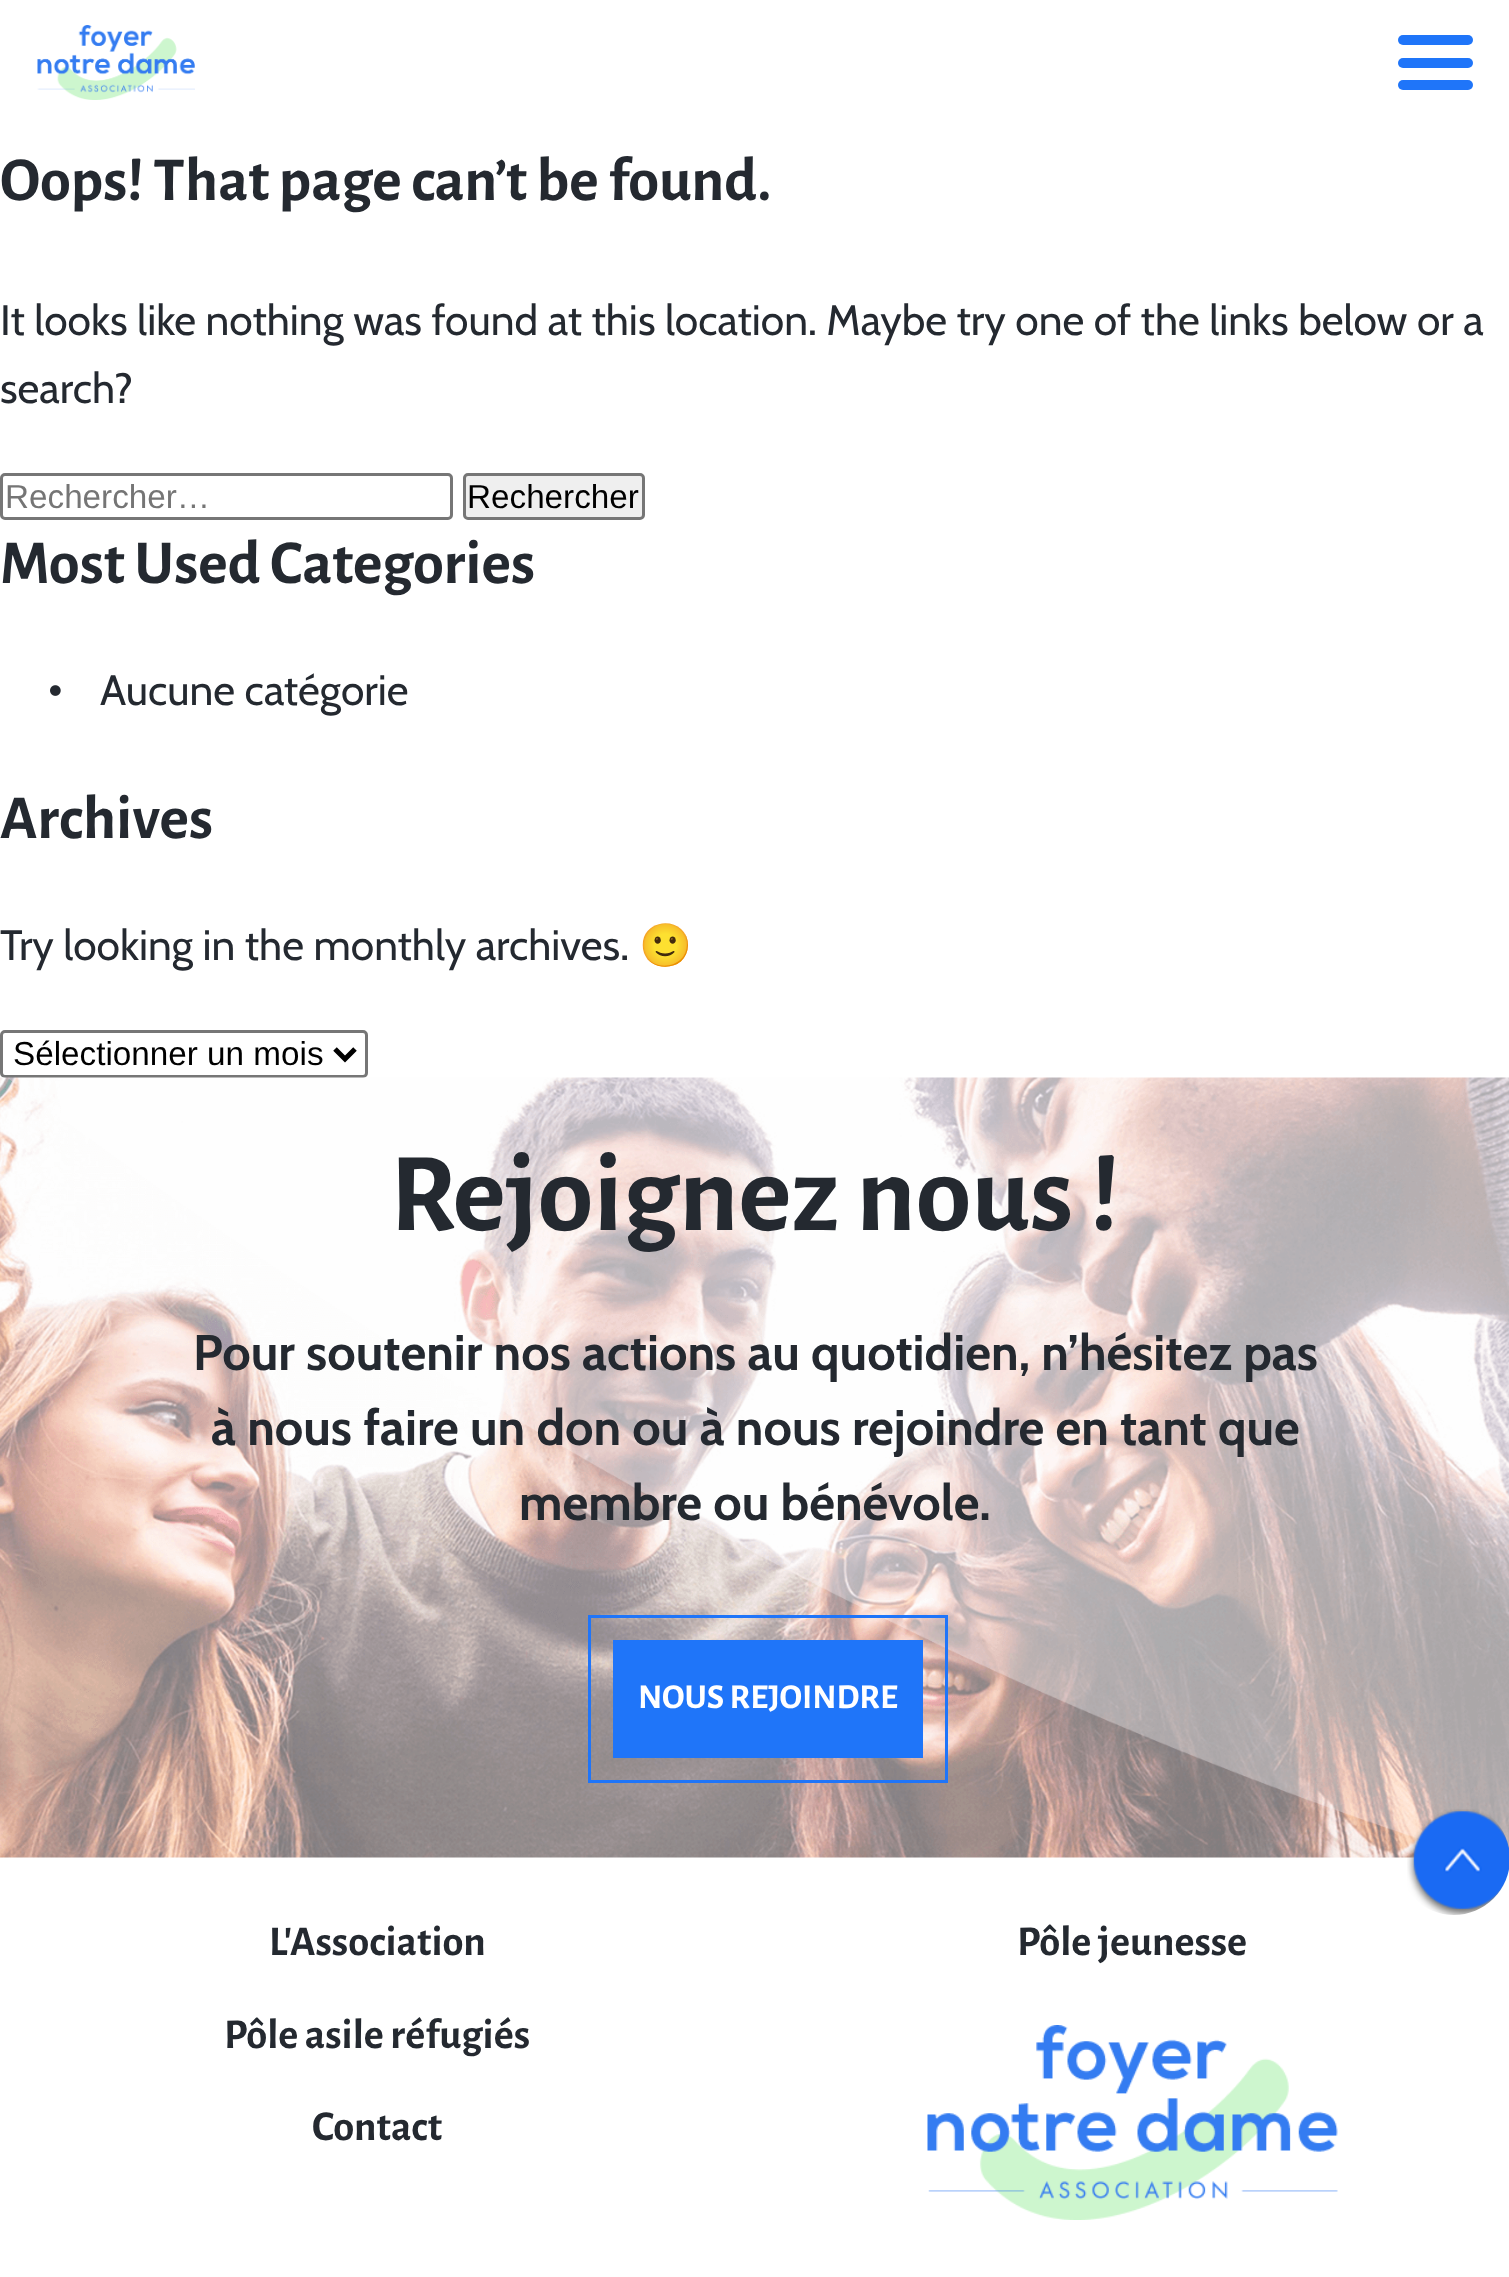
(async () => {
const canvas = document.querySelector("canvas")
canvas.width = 1509
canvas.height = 2277
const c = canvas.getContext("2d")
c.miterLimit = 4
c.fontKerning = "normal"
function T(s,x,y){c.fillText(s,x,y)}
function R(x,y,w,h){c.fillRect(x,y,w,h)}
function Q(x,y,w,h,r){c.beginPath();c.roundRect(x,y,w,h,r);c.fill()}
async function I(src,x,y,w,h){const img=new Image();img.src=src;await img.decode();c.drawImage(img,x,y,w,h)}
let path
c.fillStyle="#fff"
R(0,0,1509,2277)
c.fillStyle="#1f75f9"
Q(1398,35,75,10,5)
Q(1398,58,75,10,5)
Q(1398,80,75,10,5)
await I("1.png",37,25,158,75)
c.font="bold 62.5px Alegreya Sans"
c.fillStyle="#242930"
T("Oops! That page can’t be found.",0,200)
c.font="42.5px Cabin"
T("It looks like nothing was found at this location. Maybe try one of the links below or a",0,335)
T("search?",0,403)
c.beginPath()
c.roundRect(1.5,474.5,450,44,3.5)
c.strokeStyle="#767676"
c.lineWidth=3
c.stroke()
c.font="33.25px Liberation Sans"
c.fillStyle="#757575"
T("Rechercher…",5,508)
c.fillStyle="#efefef"
c.beginPath()
c.roundRect(464.5,474.5,179,44,3.5)
c.fill()
c.stroke()
c.fillStyle="#000"
T("Rechercher",467,508)
c.font="bold 62.5px Alegreya Sans"
c.fillStyle="#242930"
T("Most Used Categories",0,583)
await I("2.png",50,685,11,11)
c.font="42.5px Cabin"
T("Aucune catégorie",100,705)
c.font="bold 62.5px Alegreya Sans"
T("Archives",0,838)
c.font="42.5px Cabin"
T("Try looking in the monthly archives.",0,960)
c.font="42.5px Noto Color Emoji"
T("🙂",639,960)
c.beginPath()
c.roundRect(1.5,1031.5,365,45,3.5)
c.stroke()
path = new Path2D("M335 1049l10 10l10-10")
c.strokeStyle="#000"
c.lineWidth=5
c.stroke(path)
c.font="33.25px Liberation Sans"
c.fillStyle="#000"
T("Sélectionner un mois",13,1065)
await I("3.png",0,1077,1509,781)
c.font="bold 112.5px Alegreya Sans"
c.fillStyle="#242930"
T("Rejoignez nous !",390,1230)
c.font="bold 50px Cabin"
T("Pour soutenir nos actions au quotidien, n’hésitez pas",193,1370)
T("à nous faire un don ou à nous rejoindre en tant que",211,1445)
T("membre ou bénévole.",519,1520)
c.fillStyle="#1f75f9"
R(613,1640,310,118)
c.strokeStyle="#1f75f9"
c.lineWidth=3
c.strokeRect(589.5,1616.5,357,165)
c.font="bold 35px Alegreya Sans"
c.fillStyle="#fff"
T("NOUS REJOINDRE",638,1708)
await I("4.png",1407,1809,102,106)
c.font="bold 42.5px Alegreya Sans"
c.fillStyle="#242930"
T("L'Association",269,1955)
T("Pôle jeunesse",1017,1955)
T("Pôle asile réfugiés",224,2048)
await I("5.png",927,2025,411,195)
T("Contact",312,2140)
})()
